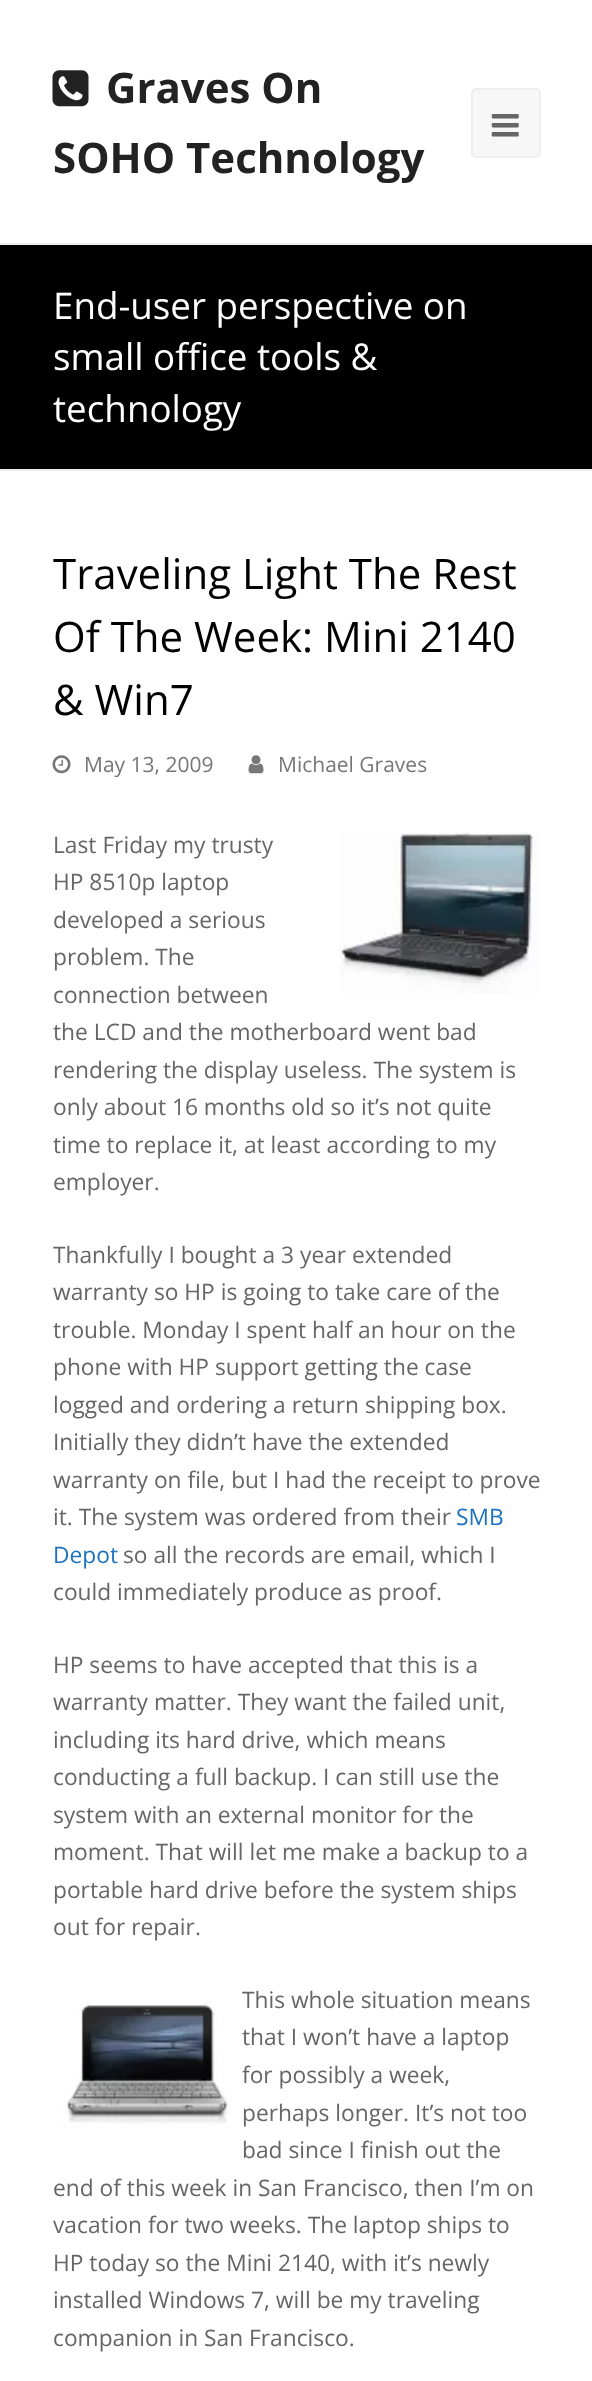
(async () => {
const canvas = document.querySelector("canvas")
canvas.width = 592
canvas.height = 2381
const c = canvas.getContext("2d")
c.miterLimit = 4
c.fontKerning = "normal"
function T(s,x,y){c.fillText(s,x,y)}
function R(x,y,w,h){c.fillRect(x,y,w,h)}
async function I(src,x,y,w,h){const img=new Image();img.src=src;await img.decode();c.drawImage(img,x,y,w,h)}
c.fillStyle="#fff"
R(0,0,592,2381)
await I("1.png",52,70,37,37)
c.font="bold 42px Open Sans"
c.fillStyle="#222"
T("Graves On",106,103)
T("SOHO Technology",53,173)
c.fillStyle="#f7f7f7"
c.beginPath()
c.roundRect(472,89,68,68,4)
c.fill()
c.strokeStyle="#eee"
c.lineWidth=2
c.stroke()
await I("2.png",491,114,28,23)
c.fillStyle="#000"
R(0,245,592,224)
c.fillStyle="#eee"
R(0,243,592,2)
R(0,469,592,2)
c.font="36.75px Open Sans"
c.fillStyle="#fff"
T("End-user perspective on",53,319)
T("small office tools &",53,370)
T("technology",53,422)
c.font="42px Open Sans"
c.fillStyle="#000"
T("Traveling Light The Rest",53,589)
T("Of The Week: Mini 2140",53,652)
T("& Win7",53,715)
await I("3.png",52,755,19,19)
c.font="21px Open Sans"
c.fillStyle="#777"
T("May 13, 2009",84,772)
await I("4.png",248,755,16,19)
T("Michael Graves",278,772)
c.font="22.75px Open Sans"
c.fillStyle="#666"
T("Last Friday my trusty",53,853)
await I("5.png",339,832,201,162)
T("HP 8510p laptop",53,890)
T("developed a serious",53,928)
T("problem. The",53,965)
T("connection between",53,1003)
T("the LCD and the motherboard went bad",53,1040)
T("rendering the display useless. The system is",53,1078)
T("only about 16 months old so it’s not quite",53,1115)
T("time to replace it, at least according to my",53,1153)
T("employer.",53,1190)
T("Thankfully I bought a 3 year extended",53,1263)
T("warranty so HP is going to take care of the",53,1300)
T("trouble. Monday I spent half an hour on the",53,1338)
T("phone with HP support getting the case",53,1375)
T("logged and ordering a return shipping box.",53,1413)
T("Initially they didn’t have the extended",53,1450)
T("warranty on file, but I had the receipt to prove",53,1488)
T("it. The system was ordered from their",53,1525)
c.fillStyle="#1e73be"
T("SMB",456,1525)
T("Depot",53,1563)
c.fillStyle="#666"
T("so all the records are email, which I",123,1563)
T("could immediately produce as proof.",53,1600)
T("HP seems to have accepted that this is a",53,1673)
T("warranty matter. They want the failed unit,",53,1710)
T("including its hard drive, which means",53,1748)
T("conducting a full backup. I can still use the",53,1785)
T("system with an external monitor for the",53,1823)
T("moment. That will let me make a backup to a",53,1860)
T("portable hard drive before the system ships",53,1898)
T("out for repair.",53,1935)
T("This whole situation means",242,2008)
await I("6.png",63,2002,168,126)
T("that I won’t have a laptop",242,2045)
T("for possibly a week,",242,2083)
T("perhaps longer. It’s not too",242,2121)
T("bad since I finish out the",242,2158)
T("end of this week in San Francisco, then I’m on",53,2196)
T("vacation for two weeks. The laptop ships to",53,2233)
T("HP today so the Mini 2140, with it’s newly",53,2271)
T("installed Windows 7, will be my traveling",53,2308)
T("companion in San Francisco.",53,2346)
})()
